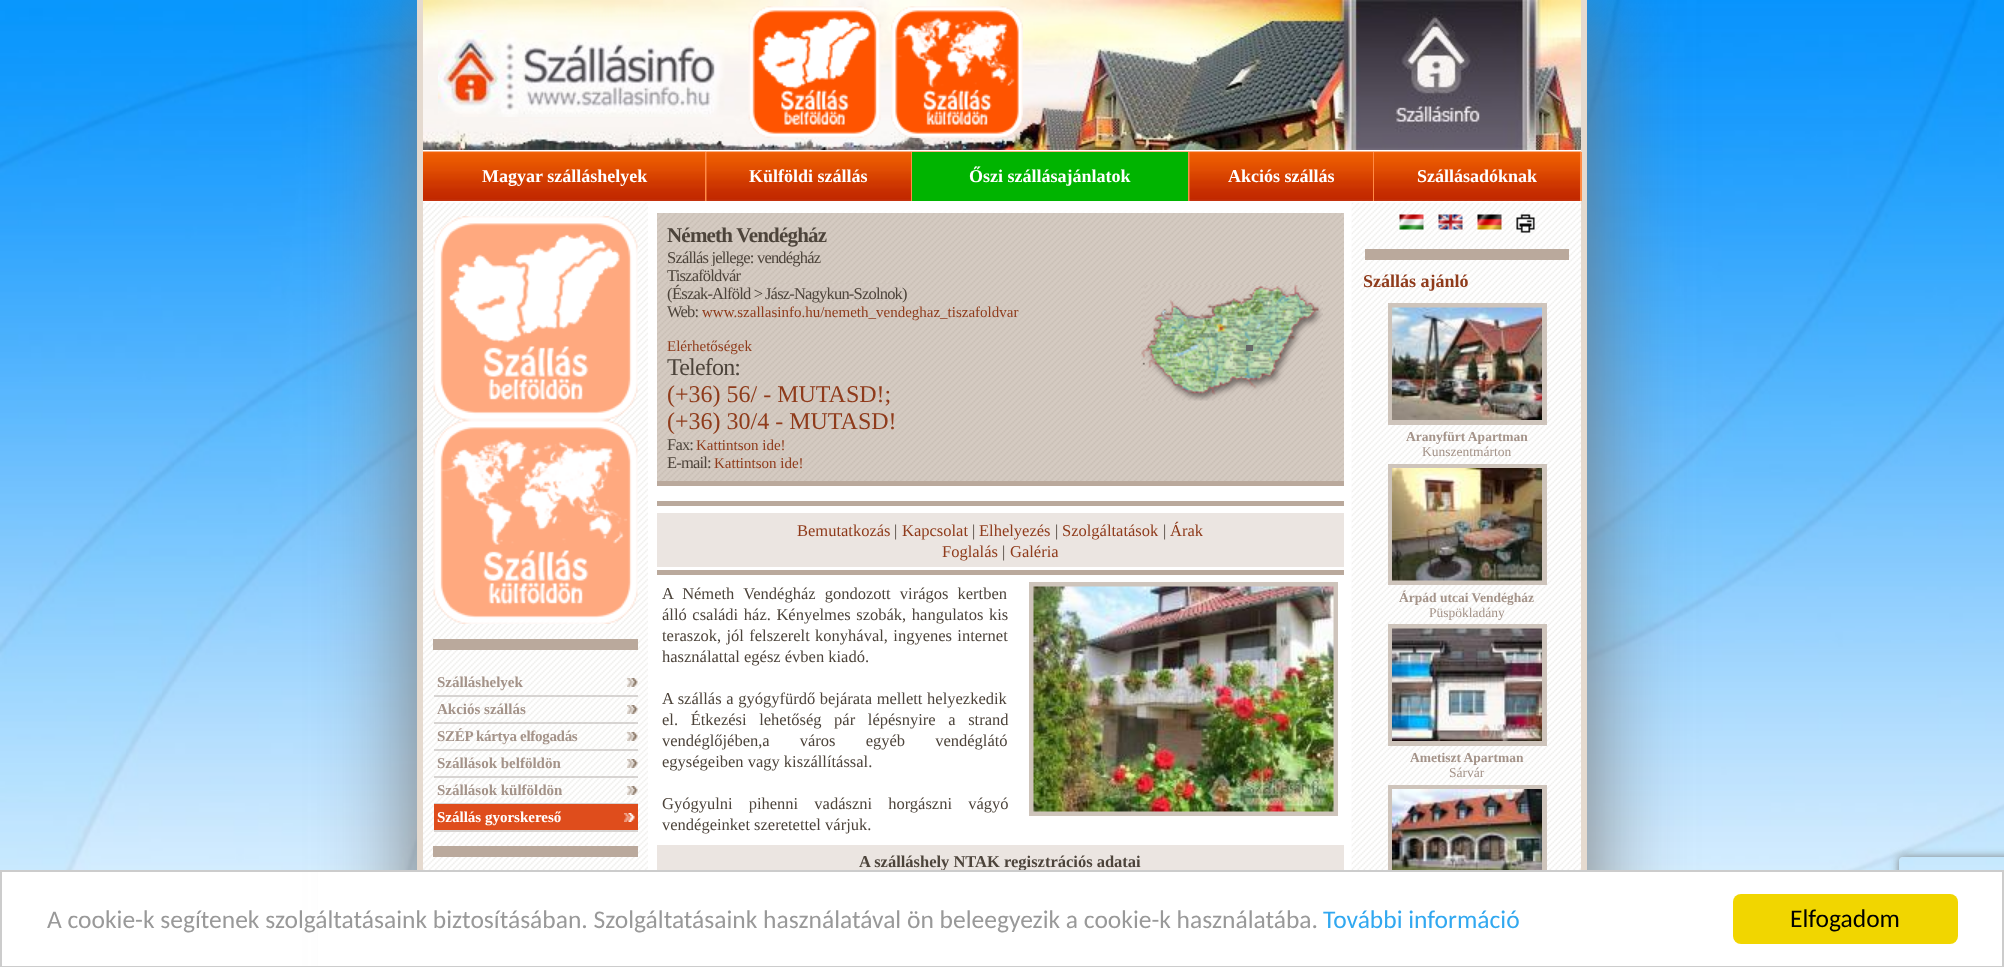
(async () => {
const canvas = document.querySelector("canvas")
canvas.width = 2004
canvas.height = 967
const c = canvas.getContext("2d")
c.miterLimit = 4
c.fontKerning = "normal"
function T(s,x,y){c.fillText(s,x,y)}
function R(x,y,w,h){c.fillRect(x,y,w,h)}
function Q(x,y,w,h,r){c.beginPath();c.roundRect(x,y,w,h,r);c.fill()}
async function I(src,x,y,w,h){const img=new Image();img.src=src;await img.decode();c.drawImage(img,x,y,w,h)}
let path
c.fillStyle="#fff"
R(0,0,2004,967)
await I("1.png",0,0,2004,870)
c.fillStyle="#777"
c.filter="blur(48px)"
c.beginPath()
c.rect(417,0,1170,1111)
c.fill()
c.filter="none"
c.fillStyle="#fff"
R(423,201,1158,669)
c.fillStyle="#e5dacf"
R(1581,0,6,870)
R(417,0,6,870)
await I("2.png",423,0,1158,150)
await I("3.png",438,30,287,87)
await I("4.png",748,6,133,132)
await I("5.png",891,6,132,132)
c.fillStyle="#fff"
R(423,150,1158,2)
await I("6.png",423,151,284,50)
c.fillStyle="#ff8b46"
R(705,152,2,49)
c.font="bold 18px Liberation Serif"
c.fillStyle="#fff"
T("Magyar szálláshelyek",482,182)
await I("7.png",706,151,206,50)
c.fillStyle="#ff8b46"
R(911,152,1,49)
c.fillStyle="#fff"
T("Külföldi szállás",749,182)
await I("8.png",912,151,278,1)
c.fillStyle="#ff8b46"
R(1188,152,2,49)
c.fillStyle="#00b400"
R(912,152,276,49)
c.fillStyle="#fff"
T("Őszi szállásajánlatok",969,182)
await I("9.png",1189,151,185,50)
c.fillStyle="#ff8b46"
R(1373,152,1,49)
c.fillStyle="#fff"
T("Akciós szállás",1228,182)
await I("10.png",1374,151,207,50)
c.fillStyle="#ff8b46"
R(1580,152,2,49)
c.fillStyle="#fff"
T("Szállásadóknak",1417,182)
await I("11.png",423,202,225,668)
await I("12.png",433,216,205,204)
await I("13.png",433,420,205,204)
c.fillStyle="#baa99c"
R(433,639,205,11)
await I("14.png",627,678,11,9)
c.fillStyle="#d7d4d2"
R(434,695,204,2)
c.font="bold 15px Liberation Serif"
c.fillStyle="#a49389"
T("Szálláshelyek",437,687)
await I("15.png",627,705,11,9)
c.fillStyle="#d7d4d2"
R(434,722,204,2)
c.fillStyle="#a49389"
T("Akciós szállás",437,714)
await I("14.png",627,732,11,9)
c.fillStyle="#d7d4d2"
R(434,749,204,2)
c.letterSpacing="-0.3px"
c.fillStyle="#a49389"
T("SZÉP kártya elfogadás",437,741)
await I("15.png",627,759,11,9)
c.fillStyle="#d7d4d2"
R(434,776,204,2)
c.letterSpacing="0px"
c.fillStyle="#a49389"
T("Szállások belföldön",437,768)
await I("14.png",627,786,11,9)
c.fillStyle="#d7d4d2"
R(434,803,204,1)
c.fillStyle="#a49389"
T("Szállások külföldön",437,795)
c.fillStyle="#d7d4d2"
R(434,830,204,2)
c.fillStyle="#df4d1c"
R(434,804,204,26)
await I("16.png",624,813,11,9)
c.fillStyle="#fff"
T("Szállás gyorskereső",437,822)
c.fillStyle="#baa99c"
R(433,846,205,11)
c.fillStyle="#d5cbc2"
R(657,213,687,268)
await I("17.png",657,213,687,268)
c.letterSpacing="-0.8px"
c.font="bold 21px Liberation Serif"
c.fillStyle="#4d443b"
T("Németh Vendégház",667,242)
c.font="16.5px Liberation Serif"
T("Szállás jellege: vendégház",667,263)
c.fillStyle="#d5cbc2"
R(668,266,72,18)
await I("18.png",667,265,73,19)
c.fillStyle="#4d443b"
T("Tiszaföldvár",667,281)
T("(",667,299)
c.fillStyle="#d5cbc2"
R(672,284,78,18)
await I("19.png",672,283,78,19)
R(765,284,137,18)
await I("20.png",765,283,137,19)
c.fillStyle="#4d443b"
T("Észak-Alföld >",672,299)
T("Jász-Nagykun-Szolnok)",765,299)
T("Web:",667,317)
c.letterSpacing="0px"
c.font="15px Liberation Serif"
c.fillStyle="#8f3b1b"
T("www.szallasinfo.hu/nemeth_vendeghaz_tiszafoldvar",702,317)
T("Elérhetőségek",667,351)
c.letterSpacing="-0.8px"
c.font="24px Liberation Serif"
c.fillStyle="#4d443b"
T("Telefon:",667,375)
c.letterSpacing="0px"
c.fillStyle="#8f3b1b"
T("(+36) 56/ - MUTASD!;",667,402)
T("(+36) 30/4 - MUTASD!",667,429)
c.letterSpacing="-0.8px"
c.font="16.5px Liberation Serif"
c.fillStyle="#4d443b"
T("Fax:",667,450)
c.letterSpacing="0px"
c.font="15px Liberation Serif"
c.fillStyle="#8f3b1b"
T("Kattintson ide!",696,450)
c.letterSpacing="-0.8px"
c.font="16.5px Liberation Serif"
c.fillStyle="#4d443b"
T("E-mail:",667,468)
c.letterSpacing="0px"
c.font="15px Liberation Serif"
c.fillStyle="#8f3b1b"
T("Kattintson ide!",714,468)
await I("21.png",1141,285,182,116)
c.fillStyle="#666"
R(1246,345,7,6)
c.fillStyle="#baa99c"
R(657,481,687,5)
R(657,501,687,5)
c.fillStyle="#ebe5e1"
R(657,513,687,54)
c.font="16.5px Liberation Serif"
c.fillStyle="#8f3b1b"
T("Bemutatkozás",797,536)
c.fillStyle="#4d443b"
T("|",894,536)
c.fillStyle="#8f3b1b"
T("Kapcsolat",902,536)
c.fillStyle="#4d443b"
T("|",972,536)
c.fillStyle="#8f3b1b"
T("Elhelyezés",979,536)
c.fillStyle="#4d443b"
T("|",1055,536)
c.fillStyle="#8f3b1b"
T("Szolgáltatások",1062,536)
c.fillStyle="#4d443b"
T("|",1163,536)
c.fillStyle="#8f3b1b"
T("Árak",1170,536)
T("Foglalás",942,557)
c.fillStyle="#4d443b"
T("|",1002,557)
c.fillStyle="#8f3b1b"
T("Galéria",1010,557)
c.fillStyle="#baa99c"
R(657,570,687,5)
c.wordSpacing="5px"
c.fillStyle="#4d443b"
T("A Németh Vendégház gondozott virágos kertben",662,599)
c.strokeStyle="#cec4bb"
c.lineWidth=5
c.strokeRect(1031.5,584.5,304,229)
await I("22.png",1033,586,301,226)
c.wordSpacing="1.5px"
T("álló családi ház. Kényelmes szobák, hangulatos kis",662,620)
c.wordSpacing="1.25px"
T("teraszok, jól felszerelt konyhával, ingyenes internet",662,641)
c.wordSpacing="0px"
T("használattal egész évben kiadó.",662,662)
c.wordSpacing="0.5px"
T("A szállás a gyógyfürdő bejárata mellett helyezkedik",662,704)
c.wordSpacing="8.5px"
T("el. Étkezési lehetőség pár lépésnyire a strand",662,725)
c.wordSpacing="26px"
T("vendéglőjében,a város egyéb vendéglátó",662,746)
c.wordSpacing="0px"
T("egységeiben vagy kiszállítással.",662,767)
c.wordSpacing="12px"
T("Gyógyulni pihenni vadászni horgászni vágyó",662,809)
c.wordSpacing="0px"
T("vendégeinket szeretettel várjuk.",662,830)
c.fillStyle="#ebe5e1"
R(657,845,687,25)
c.font="bold 16.5px Liberation Serif"
c.fillStyle="#4d443b"
T("A szálláshely NTAK regisztrációs adatai",859,867)
await I("23.png",1351,202,230,668)
await I("24.png",1399,214,25,16)
await I("25.png",1438,214,25,16)
await I("26.png",1477,214,25,16)
await I("27.png",1516,214,19,19)
c.fillStyle="#baa99c"
R(1365,249,204,11)
c.font="bold 18px Liberation Serif"
c.fillStyle="#8f3b1b"
T("Szállás ajánló",1363,287)
c.strokeRect(1390.5,305.5,154,117)
await I("28.png",1392,307,150,113)
c.font="bold 13.5px Liberation Serif"
c.fillStyle="#a49389"
T("Aranyfürt Apartman",1406,441)
c.font="13.5px Liberation Serif"
T("Kunszentmárton",1422,456)
c.strokeRect(1390.5,466.5,154,116)
await I("29.png",1392,468,150,113)
c.font="bold 13.5px Liberation Serif"
T("Árpád utcai Vendégház",1399,602)
c.font="13.5px Liberation Serif"
T("Püspökladány",1429,617)
c.strokeRect(1390.5,626.5,154,117)
await I("30.png",1392,628,150,113)
c.font="bold 13.5px Liberation Serif"
T("Ametiszt Apartman",1410,762)
c.font="13.5px Liberation Serif"
T("Sárvár",1449,777)
c.strokeRect(1390.5,787.5,154,116)
await I("31.png",1392,789,150,81)
c.save()
path = new Path2D("M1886 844h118v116h-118zm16 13h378c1.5 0 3 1.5 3 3v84c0 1.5-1.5 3-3 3h-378c-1.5 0-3-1.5-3-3v-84c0-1.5 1.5-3 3-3z")
c.clip(path,"evenodd")
c.fillStyle="#808080"
c.filter="blur(4px)"
c.beginPath()
c.roundRect(1899,857,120,90,3)
c.fill()
c.filter="none"
c.restore()
c.fillStyle="#fff"
R(318,872,1684,94)
c.strokeStyle="#ccc"
c.lineWidth=2
c.strokeRect(1,871,2002,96)
c.font="25.5px Carlito"
c.fillStyle="#999"
T("A cookie-k segítenek szolgáltatásaink biztosításában. Szolgáltatásaink használatával ön beleegyezik a cookie-k használatába.",47,928)
c.fillStyle="#31a8f0"
T("További információ",1323,928)
c.fillStyle="#f1d600"
Q(1733,894,225,50,8)
c.fillStyle="#000"
T("Elfogadom",1790,927)
})()
